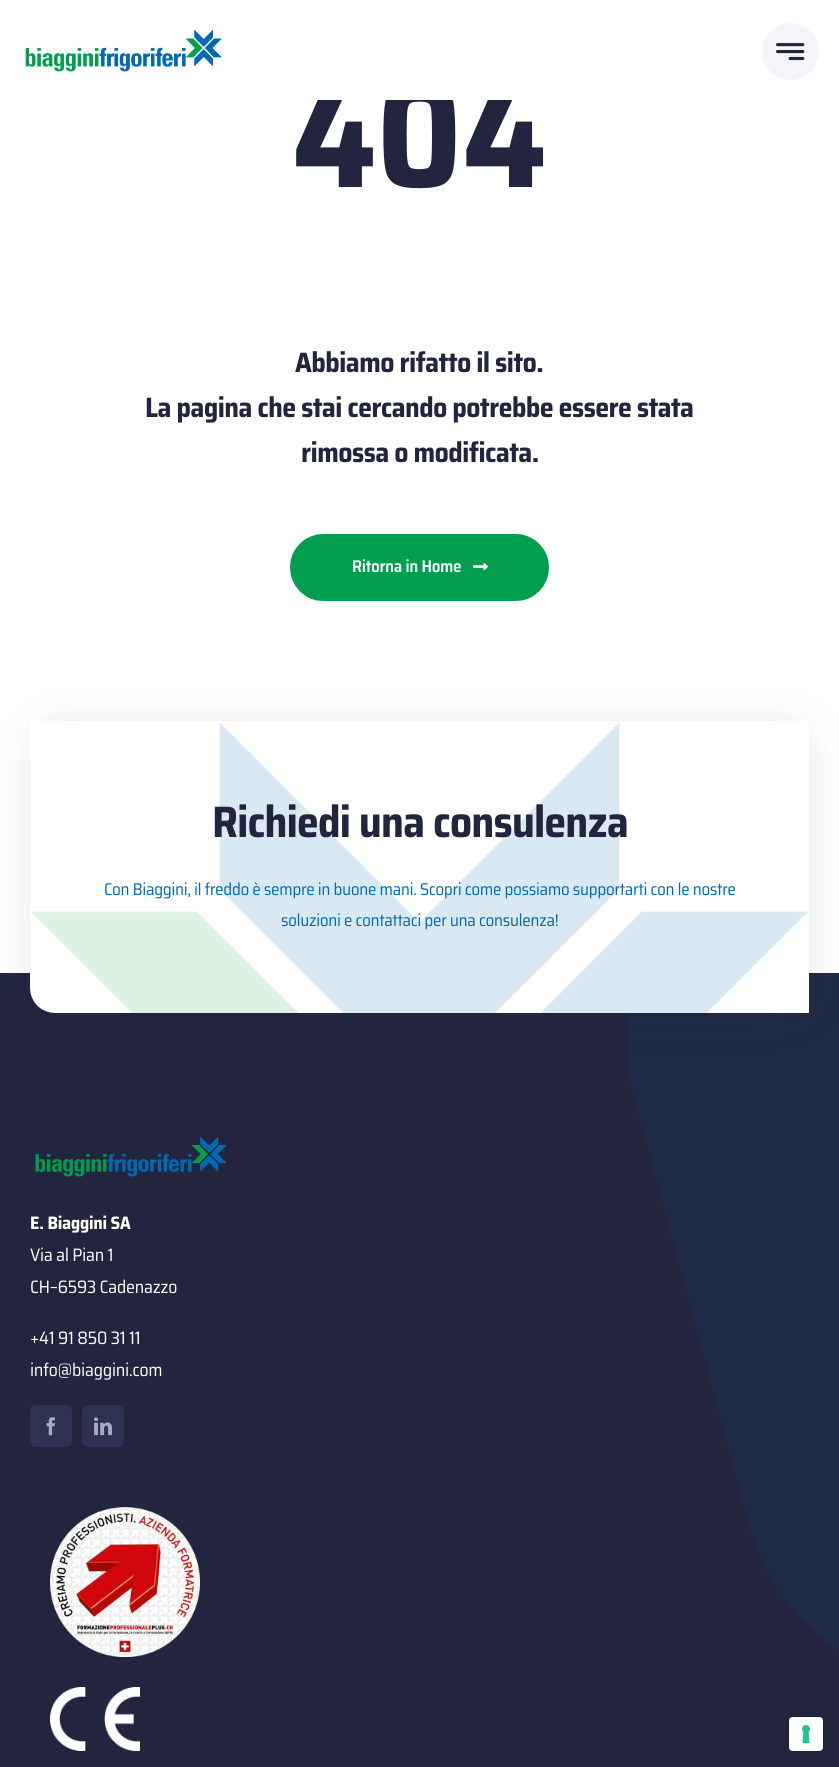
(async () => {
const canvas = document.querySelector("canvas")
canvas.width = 839
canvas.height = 1767
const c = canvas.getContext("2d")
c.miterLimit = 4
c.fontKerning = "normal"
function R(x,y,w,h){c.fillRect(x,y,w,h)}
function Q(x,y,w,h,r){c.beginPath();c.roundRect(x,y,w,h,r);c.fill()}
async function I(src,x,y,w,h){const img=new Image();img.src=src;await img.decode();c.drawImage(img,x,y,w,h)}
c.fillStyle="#fff"
R(0,0,839,1767)
await I("1.png",25,29,197,43)
c.fillStyle="#f4f5fa"
c.beginPath()
c.arc(790.5,51.5,28.5,0,7)
c.fill()
await I("2.png",776,43,29,18)
await I("3.png",296,100,248,89)
await I("4.png",295,351,248,22)
await I("5.png",146,396,547,27)
await I("6.png",302,441,236,22)
c.fillStyle="#009e4e"
c.beginPath()
c.roundRect(291,535,257,65,32.5)
c.fill()
c.strokeStyle="#009e4e"
c.lineWidth=2
c.stroke()
await I("7.png",353,559,108,14)
await I("8.png",473,562,15,9)
c.fillStyle="#22253d"
R(0,973,839,794)
await I("23.png",627,973,212,678)
c.fillStyle="#23263e1a"
c.filter="blur(20px)"
c.beginPath()
c.roundRect(32,723,779,292,25)
c.fill()
c.filter="none"
c.fillStyle="#fff"
c.beginPath()
c.roundRect(30,721,779,292,[0,0,0,25])
c.fill()
await I("9.png",31,723,777,290)
await I("10.png",214,804,413,34)
await I("11.png",105,882,630,17)
await I("12.png",281,913,277,17)
await I("13.png",35,1136,192,41)
await I("14.png",31,1215,100,18)
await I("15.png",30,1247,82,15)
await I("16.png",31,1279,146,15)
await I("17.png",31,1331,108,14)
await I("18.png",31,1362,131,18)
c.fillStyle="#2e3252"
Q(30,1405,42,42,6)
await I("19.png",46,1417,9,19)
Q(82,1405,42,42,6)
await I("20.png",94,1417,18,19)
await I("21.png",50,1507,150,150)
await I("22.png",50,1687,90,64)
c.beginPath()
c.roundRect(788.5,1716.5,35,35,4.5)
c.strokeStyle="#1d1f34"
c.lineWidth=1
c.stroke()
c.fillStyle="#fff"
Q(789,1717,34,34,4)
await I("24.png",802,1725,8,18)
})()
